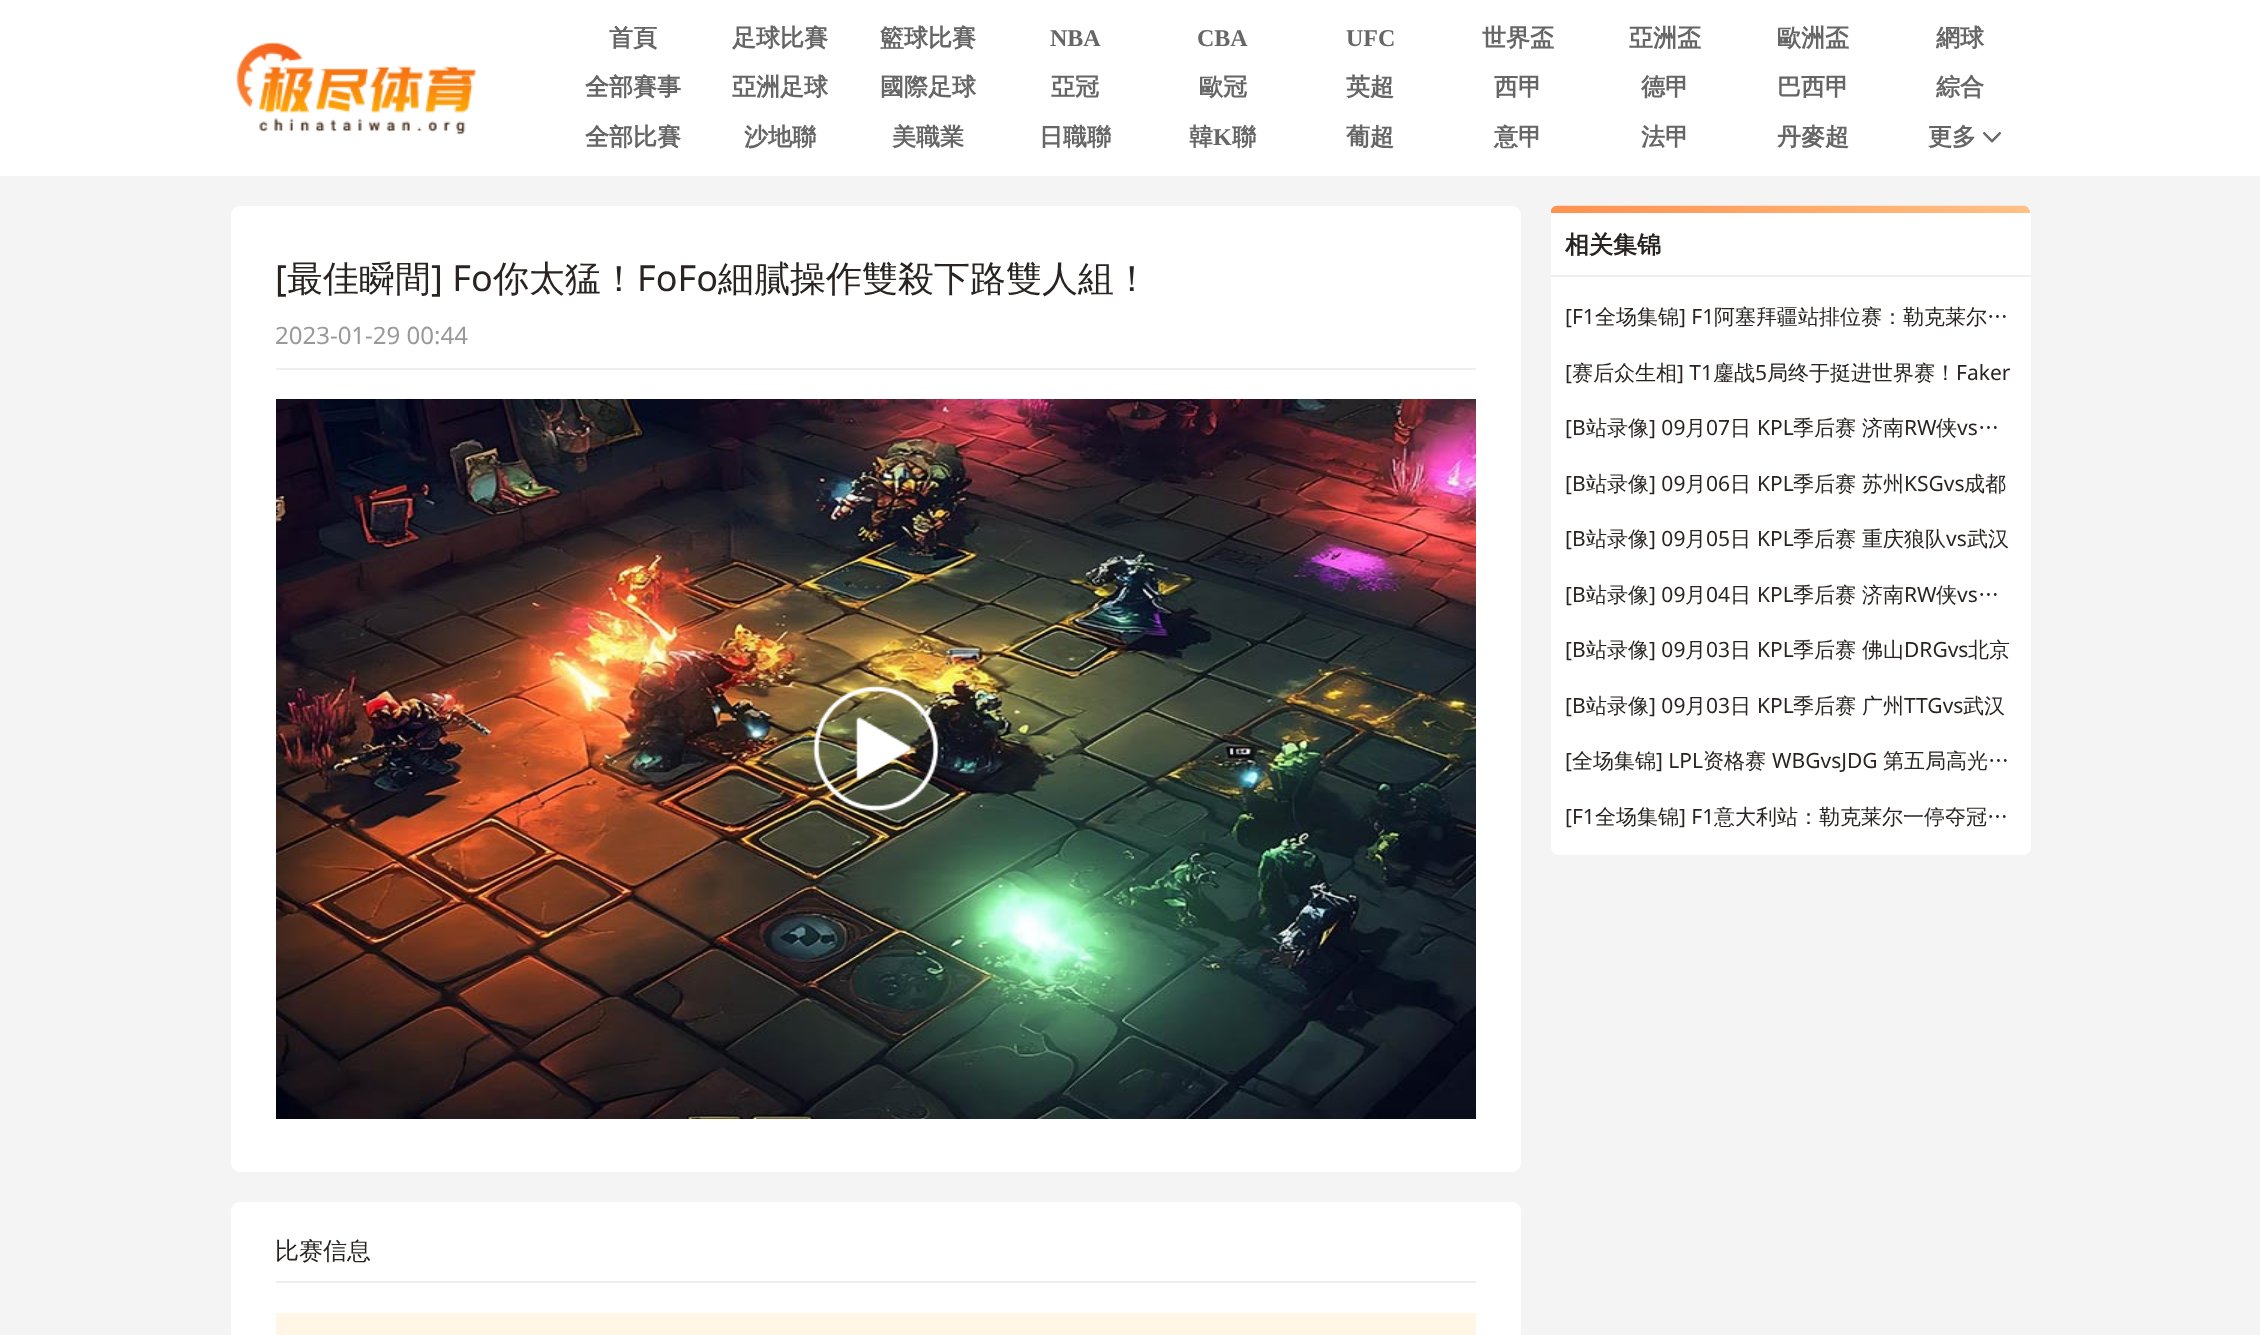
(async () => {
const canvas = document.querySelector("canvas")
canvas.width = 2260
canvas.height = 1335
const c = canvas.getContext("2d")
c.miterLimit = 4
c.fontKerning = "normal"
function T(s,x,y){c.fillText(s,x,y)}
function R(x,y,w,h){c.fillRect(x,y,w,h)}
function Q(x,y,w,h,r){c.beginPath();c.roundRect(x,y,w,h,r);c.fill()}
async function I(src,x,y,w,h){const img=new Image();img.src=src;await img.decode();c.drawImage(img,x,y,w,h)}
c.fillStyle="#f4f4f4"
R(0,0,2260,1335)
c.fillStyle="#fff"
R(0,0,2260,176)
await I("1.png",236,42,240,93)
c.font="bold 24px WenQuanYi Zen Hei"
c.fillStyle="#666"
T("首頁",609,46)
T("足球比賽",732,46)
T("籃球比賽",880,46)
c.font="bold 24px Liberation Serif"
T("NBA",1050,46)
T("CBA",1197,46)
T("UFC",1346,46)
c.font="bold 24px WenQuanYi Zen Hei"
T("世界盃",1482,46)
T("亞洲盃",1629,46)
T("歐洲盃",1777,46)
T("網球",1936,46)
T("全部賽事",585,95)
T("亞洲足球",732,95)
T("國際足球",880,95)
T("亞冠",1051,95)
T("歐冠",1199,95)
T("英超",1346,95)
T("西甲",1494,95)
T("德甲",1641,95)
T("巴西甲",1777,95)
T("綜合",1936,95)
T("全部比賽",585,145)
T("沙地聯",744,145)
T("美職業",892,145)
T("日職聯",1039,145)
T("韓",1189,145)
c.font="bold 24px Liberation Serif"
T("K",1213,145)
c.font="bold 24px WenQuanYi Zen Hei"
T("聯",1232,145)
T("葡超",1346,145)
T("意甲",1494,145)
T("法甲",1641,145)
T("丹麥超",1777,145)
T("更多",1928,145)
await I("2.png",1983,132,18,11)
c.fillStyle="#fff"
Q(231,206,1290,966,9)
c.fillStyle="#eee"
R(276,368,1200,2)
c.font="36px Noto Sans"
c.fillStyle="#292422"
T("[",275,291)
c.font="500 36px WenQuanYi Zen Hei"
T("最佳瞬間",287,291)
c.font="36px Noto Sans"
T("] Fo",431,291)
c.font="500 36px WenQuanYi Zen Hei"
T("你太猛！",493,291)
c.font="36px Noto Sans"
T("FoFo",637,291)
c.font="500 36px WenQuanYi Zen Hei"
T("細膩操作雙殺下路雙人組！",718,291)
c.font="24px Noto Sans"
c.fillStyle="#999"
T("2023-01-29 00:44",275,344)
await I("3.png",276,399,1200,720)
await I("4.png",813,685,126,127)
c.fillStyle="#fff"
Q(231,1202,1290,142,9)
c.fillStyle="#eee"
R(276,1281,1200,2)
c.font="500 24px WenQuanYi Zen Hei"
c.fillStyle="#292422"
T("比赛信息",275,1259)
c.fillStyle="#fff6e5"
R(276,1313,1200,22)
c.fillStyle="#fff"
Q(1551,206,480,649,8)
await I("5.png",1551,205,480,8)
c.fillStyle="#eee"
R(1551,275,480,2)
c.font="bold 24px WenQuanYi Zen Hei"
c.fillStyle="#292422"
T("相关集锦",1565,253)
c.font="21px Noto Sans"
T("[F1",1565,324)
c.font="500 21px WenQuanYi Zen Hei"
T("全场集锦",1595,324)
c.font="21px Noto Sans"
T("] F1",1679,324)
c.font="500 21px WenQuanYi Zen Hei"
T("阿塞拜疆站排位赛：勒克莱尔…",1714,324)
c.font="21px Noto Sans"
T("[",1565,380)
c.font="500 21px WenQuanYi Zen Hei"
T("赛后众生相",1572,380)
c.font="21px Noto Sans"
T("] T1",1677,380)
c.font="500 21px WenQuanYi Zen Hei"
T("鏖战",1713,380)
c.font="21px Noto Sans"
T("5",1755,380)
c.font="500 21px WenQuanYi Zen Hei"
T("局终于挺进世界赛！",1767,380)
c.font="21px Noto Sans"
T("Faker",1956,380)
T("[B",1565,435)
c.font="500 21px WenQuanYi Zen Hei"
T("站录像",1586,435)
c.font="21px Noto Sans"
T("] 09",1649,435)
c.font="500 21px WenQuanYi Zen Hei"
T("月",1685,435)
c.font="21px Noto Sans"
T("07",1706,435)
c.font="500 21px WenQuanYi Zen Hei"
T("日",1730,435)
c.font="21px Noto Sans"
T("KPL",1757,435)
c.font="500 21px WenQuanYi Zen Hei"
T("季后赛",1793,435)
T("济南",1862,435)
c.font="21px Noto Sans"
T("RW",1904,435)
c.font="500 21px WenQuanYi Zen Hei"
T("侠",1936,435)
c.font="21px Noto Sans"
T("vs",1957,435)
c.font="500 21px WenQuanYi Zen Hei"
T("…",1978,435)
c.font="21px Noto Sans"
T("[B",1565,491)
c.font="500 21px WenQuanYi Zen Hei"
T("站录像",1586,491)
c.font="21px Noto Sans"
T("] 09",1649,491)
c.font="500 21px WenQuanYi Zen Hei"
T("月",1685,491)
c.font="21px Noto Sans"
T("06",1706,491)
c.font="500 21px WenQuanYi Zen Hei"
T("日",1730,491)
c.font="21px Noto Sans"
T("KPL",1757,491)
c.font="500 21px WenQuanYi Zen Hei"
T("季后赛",1793,491)
T("苏州",1862,491)
c.font="21px Noto Sans"
T("KSGvs",1904,491)
c.font="500 21px WenQuanYi Zen Hei"
T("成都",1964,491)
c.font="21px Noto Sans"
T("[B",1565,546)
c.font="500 21px WenQuanYi Zen Hei"
T("站录像",1586,546)
c.font="21px Noto Sans"
T("] 09",1649,546)
c.font="500 21px WenQuanYi Zen Hei"
T("月",1685,546)
c.font="21px Noto Sans"
T("05",1706,546)
c.font="500 21px WenQuanYi Zen Hei"
T("日",1730,546)
c.font="21px Noto Sans"
T("KPL",1757,546)
c.font="500 21px WenQuanYi Zen Hei"
T("季后赛",1793,546)
T("重庆狼队",1862,546)
c.font="21px Noto Sans"
T("vs",1946,546)
c.font="500 21px WenQuanYi Zen Hei"
T("武汉",1967,546)
c.font="21px Noto Sans"
T("[B",1565,602)
c.font="500 21px WenQuanYi Zen Hei"
T("站录像",1586,602)
c.font="21px Noto Sans"
T("] 09",1649,602)
c.font="500 21px WenQuanYi Zen Hei"
T("月",1685,602)
c.font="21px Noto Sans"
T("04",1706,602)
c.font="500 21px WenQuanYi Zen Hei"
T("日",1730,602)
c.font="21px Noto Sans"
T("KPL",1757,602)
c.font="500 21px WenQuanYi Zen Hei"
T("季后赛",1793,602)
T("济南",1862,602)
c.font="21px Noto Sans"
T("RW",1904,602)
c.font="500 21px WenQuanYi Zen Hei"
T("侠",1936,602)
c.font="21px Noto Sans"
T("vs",1957,602)
c.font="500 21px WenQuanYi Zen Hei"
T("…",1978,602)
c.font="21px Noto Sans"
T("[B",1565,657)
c.font="500 21px WenQuanYi Zen Hei"
T("站录像",1586,657)
c.font="21px Noto Sans"
T("] 09",1649,657)
c.font="500 21px WenQuanYi Zen Hei"
T("月",1685,657)
c.font="21px Noto Sans"
T("03",1706,657)
c.font="500 21px WenQuanYi Zen Hei"
T("日",1730,657)
c.font="21px Noto Sans"
T("KPL",1757,657)
c.font="500 21px WenQuanYi Zen Hei"
T("季后赛",1793,657)
T("佛山",1862,657)
c.font="21px Noto Sans"
T("DRGvs",1904,657)
c.font="500 21px WenQuanYi Zen Hei"
T("北京",1968,657)
c.font="21px Noto Sans"
T("[B",1565,713)
c.font="500 21px WenQuanYi Zen Hei"
T("站录像",1586,713)
c.font="21px Noto Sans"
T("] 09",1649,713)
c.font="500 21px WenQuanYi Zen Hei"
T("月",1685,713)
c.font="21px Noto Sans"
T("03",1706,713)
c.font="500 21px WenQuanYi Zen Hei"
T("日",1730,713)
c.font="21px Noto Sans"
T("KPL",1757,713)
c.font="500 21px WenQuanYi Zen Hei"
T("季后赛",1793,713)
T("广州",1862,713)
c.font="21px Noto Sans"
T("TTGvs",1904,713)
c.font="500 21px WenQuanYi Zen Hei"
T("武汉",1963,713)
c.font="21px Noto Sans"
T("[",1565,768)
c.font="500 21px WenQuanYi Zen Hei"
T("全场集锦",1572,768)
c.font="21px Noto Sans"
T("] LPL",1656,768)
c.font="500 21px WenQuanYi Zen Hei"
T("资格赛",1703,768)
c.font="21px Noto Sans"
T("WBGvsJDG",1772,768)
c.font="500 21px WenQuanYi Zen Hei"
T("第五局高光…",1883,768)
c.font="21px Noto Sans"
T("[F1",1565,824)
c.font="500 21px WenQuanYi Zen Hei"
T("全场集锦",1595,824)
c.font="21px Noto Sans"
T("] F1",1679,824)
c.font="500 21px WenQuanYi Zen Hei"
T("意大利站：勒克莱尔一停夺冠…",1714,824)
})()
